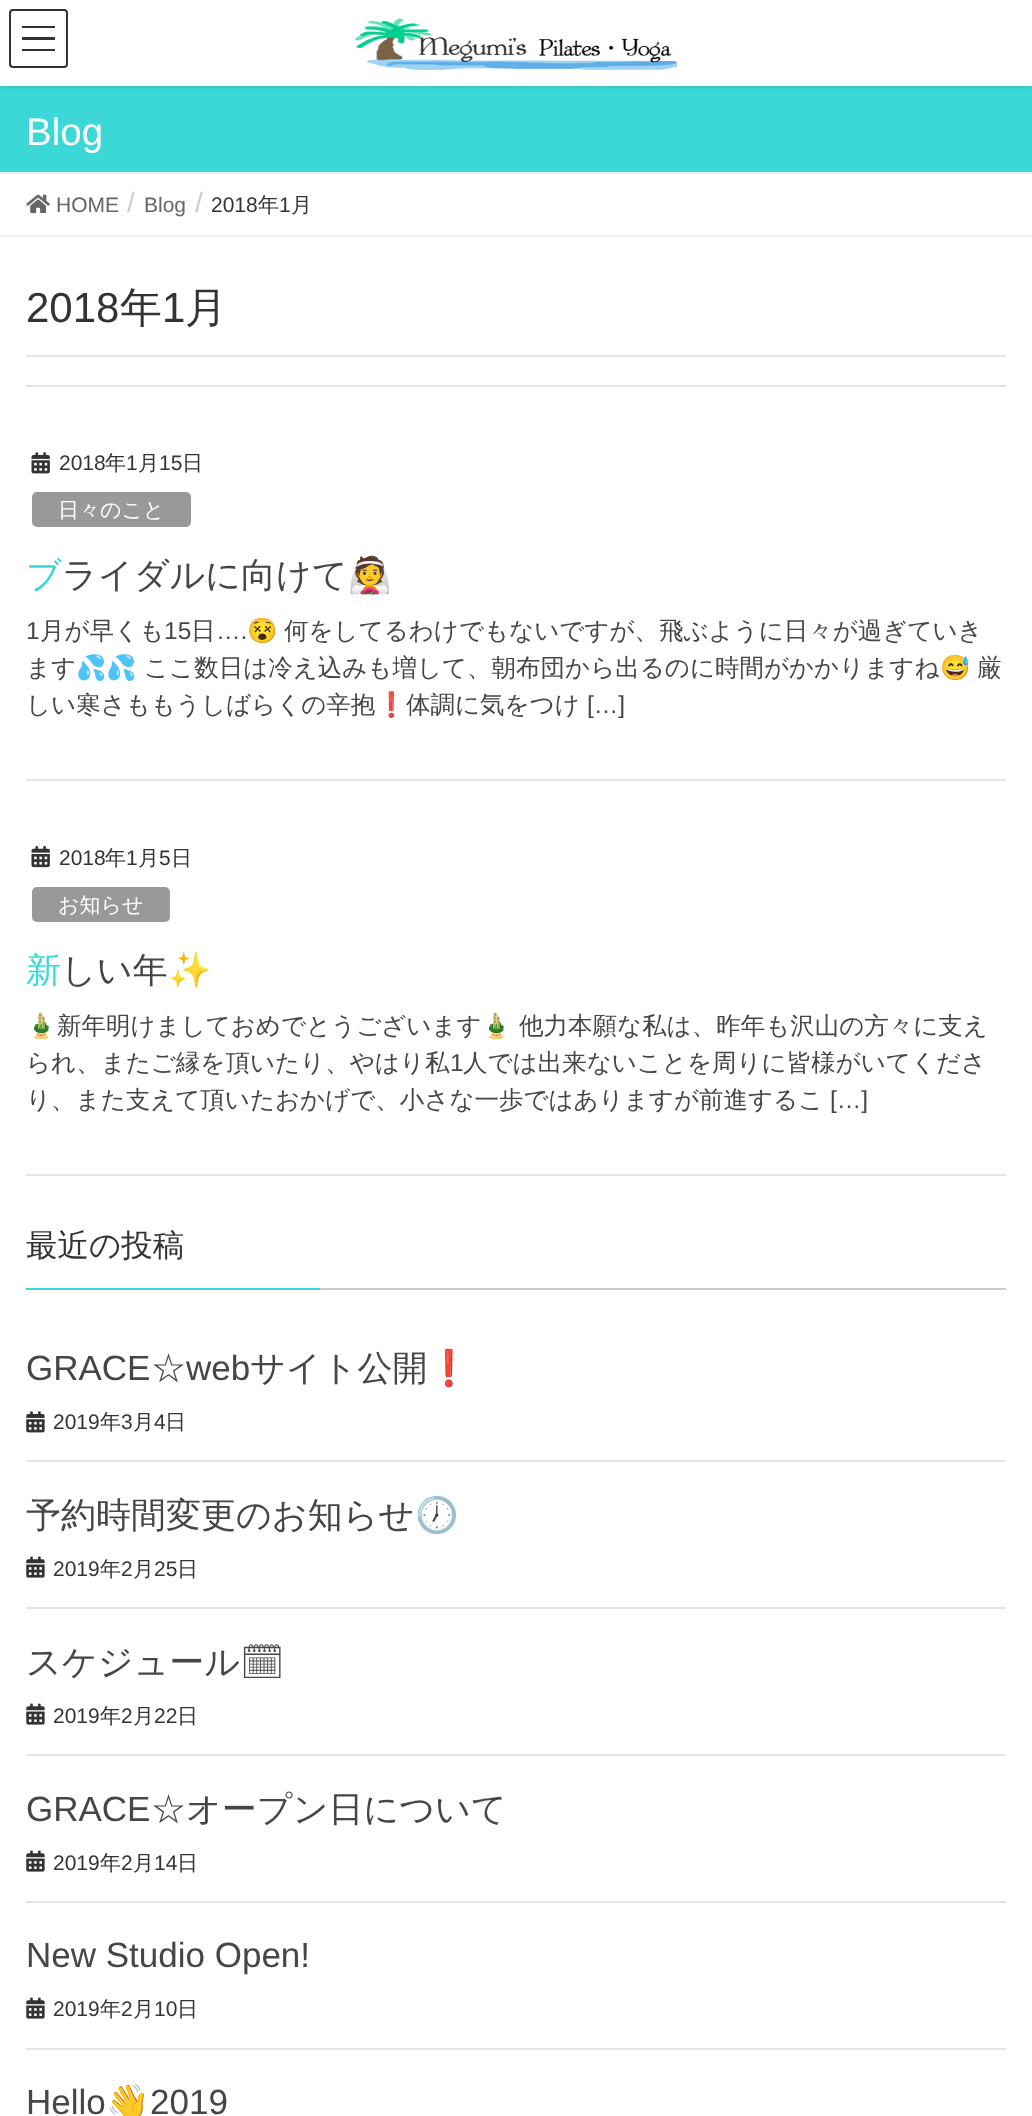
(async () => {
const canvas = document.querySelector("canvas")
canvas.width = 1032
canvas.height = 2116
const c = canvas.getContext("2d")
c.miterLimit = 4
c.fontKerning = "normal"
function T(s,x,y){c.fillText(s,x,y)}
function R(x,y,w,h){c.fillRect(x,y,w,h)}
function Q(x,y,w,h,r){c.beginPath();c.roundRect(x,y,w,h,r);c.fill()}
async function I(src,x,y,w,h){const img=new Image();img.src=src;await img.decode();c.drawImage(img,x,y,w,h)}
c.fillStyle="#fff"
R(0,0,1032,2116)
c.fillStyle="#3cd8d8"
R(0,86,1032,86)
c.fillStyle="#0000001a"
c.filter="blur(2.5px)"
c.beginPath()
c.rect(0,2,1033,86)
c.fill()
c.filter="none"
c.fillStyle="#fff"
R(0,0,1032,86)
await I("1.png",355,18,322,52)
c.fillStyle="#333"
R(22,26,33,2)
R(22,37,33,3)
R(22,49,33,2)
c.beginPath()
c.roundRect(10,10,57,57,3)
c.strokeStyle="#333"
c.lineWidth=2
c.stroke()
c.fillStyle="#eee"
R(0,172,1032,2)
c.font="38.5px Liberation Sans"
c.fillStyle="#fff"
T("Blog",26,145)
c.fillStyle="#f3f3f3"
R(0,235,1032,2)
await I("2.png",26,194,24,20)
c.font="21px Liberation Sans"
c.fillStyle="#666"
T("HOME",56,212)
c.font="28px Liberation Sans"
c.fillStyle="#ccc"
T("/",127,212)
c.font="21px Liberation Sans"
c.fillStyle="#666"
T("Blog",144,212)
c.font="28px Liberation Sans"
c.fillStyle="#ccc"
T("/",195,212)
c.font="21px Liberation Sans"
c.fillStyle="#333"
T("2018",211,212)
c.font="500 21px WenQuanYi Zen Hei"
T("年",258,212)
c.font="21px Liberation Sans"
T("1",279,212)
c.font="500 21px WenQuanYi Zen Hei"
T("月",291,212)
c.fillStyle="#e5e5e5"
R(26,355,980,2)
c.font="42px Liberation Sans"
c.fillStyle="#333"
T("2018",26,322)
c.font="500 42px WenQuanYi Zen Hei"
T("年",120,322)
c.font="42px Liberation Sans"
T("1",162,322)
c.font="500 42px WenQuanYi Zen Hei"
T("月",185,322)
c.fillStyle="#e5e5e5"
R(26,385,980,2)
R(26,779,980,2)
await I("3.png",31,452,19,22)
c.font="21px Liberation Sans"
c.fillStyle="#333"
T("2018",59,470)
c.font="500 21px WenQuanYi Zen Hei"
T("年",105,470)
c.font="21px Liberation Sans"
T("1",126,470)
c.font="500 21px WenQuanYi Zen Hei"
T("月",138,470)
c.font="21px Liberation Sans"
T("15",159,470)
c.font="500 21px WenQuanYi Zen Hei"
T("日",182,470)
c.fillStyle="#999"
Q(32,492,159,35,5)
c.fillStyle="#fff"
T("日々のこと",58,517)
c.font="35px Noto Sans"
c.fillStyle="#3cd8d8"
T("ブ",26,587)
c.font="500 35px WenQuanYi Zen Hei"
c.fillStyle="#464646"
T("ライダルに向けて",62,587)
c.font="35px Noto Color Emoji"
T("👰",348,587)
c.font="24.5px Liberation Sans"
T("1",26,639)
c.font="500 24.5px WenQuanYi Zen Hei"
T("月が早くも",40,639)
c.font="24.5px Liberation Sans"
T("15",164,639)
c.font="500 24.5px WenQuanYi Zen Hei"
T("日",191,639)
c.font="24.5px Liberation Sans"
T("….",216,639)
c.font="24.5px Noto Color Emoji"
T("😵",247,639)
c.font="500 24.5px WenQuanYi Zen Hei"
T("何をしてるわけでもないですが、飛ぶように日々が過ぎていき",284,639)
T("ます",26,676)
c.font="24.5px Noto Color Emoji"
T("💦💦",76,676)
c.font="500 24.5px WenQuanYi Zen Hei"
T("ここ数日は冷え込みも増して、朝布団から出るのに時間がかかりますね",144,676)
c.font="24.5px Noto Color Emoji"
T("😅",940,676)
c.font="500 24.5px WenQuanYi Zen Hei"
T("厳",977,676)
T("しい寒さももうしばらくの辛抱",26,713)
c.font="24.5px Noto Color Emoji"
T("❗️",376,713)
c.font="500 24.5px WenQuanYi Zen Hei"
T("体調に気をつけ",406,713)
c.font="24.5px Liberation Sans"
T("[…]",587,713)
c.fillStyle="#e5e5e5"
R(26,1174,980,2)
await I("4.png",31,846,19,22)
c.font="21px Liberation Sans"
c.fillStyle="#333"
T("2018",59,865)
c.font="500 21px WenQuanYi Zen Hei"
T("年",105,865)
c.font="21px Liberation Sans"
T("1",126,865)
c.font="500 21px WenQuanYi Zen Hei"
T("月",138,865)
c.font="21px Liberation Sans"
T("5",159,865)
c.font="500 21px WenQuanYi Zen Hei"
T("日",171,865)
c.fillStyle="#999"
Q(32,887,138,35,5)
c.fillStyle="#fff"
T("お知らせ",58,912)
c.font="35px Noto Sans"
c.fillStyle="#3cd8d8"
T("新",26,982)
c.font="500 35px WenQuanYi Zen Hei"
c.fillStyle="#464646"
T("しい年",61,982)
c.font="35px Noto Color Emoji"
T("✨",168,982)
c.font="24.5px Noto Color Emoji"
T("🎍",26,1034)
c.font="500 24.5px WenQuanYi Zen Hei"
T("新年明けましておめでとうございます",57,1034)
c.font="24.5px Noto Color Emoji"
T("🎍",481,1034)
c.font="500 24.5px WenQuanYi Zen Hei"
T("他力本願な私は、昨年も沢山の方々に支え",519,1034)
T("られ、またご縁を頂いたり、やはり私",26,1071)
c.font="24.5px Liberation Sans"
T("1",450,1071)
c.font="500 24.5px WenQuanYi Zen Hei"
T("人では出来ないことを周りに皆様がいてくださ",463,1071)
T("り、また支えて頂いたおかげで、小さな一歩ではありますが前進するこ",26,1108)
c.font="24.5px Liberation Sans"
T("[…]",830,1108)
c.fillStyle="#ccc"
R(320,1288,686,2)
c.font="500 31.5px WenQuanYi Zen Hei"
c.fillStyle="#333"
T("最近の投稿",26,1256)
c.fillStyle="#3cd8d8"
R(26,1288,294,2)
c.fillStyle="#e5e5e5"
R(26,1460,980,2)
c.font="35px Liberation Sans"
c.fillStyle="#464646"
T("GRACE",26,1380)
c.font="500 35px WenQuanYi Zen Hei"
T("☆",151,1380)
c.font="35px Liberation Sans"
T("web",186,1380)
c.font="500 35px WenQuanYi Zen Hei"
T("サイト公開",250,1380)
c.font="35px Noto Color Emoji"
T("❗️",427,1380)
await I("5.png",26,1411,19,22)
c.font="21px Liberation Sans"
c.fillStyle="#333"
T("2019",53,1429)
c.font="500 21px WenQuanYi Zen Hei"
T("年",100,1429)
c.font="21px Liberation Sans"
T("3",121,1429)
c.font="500 21px WenQuanYi Zen Hei"
T("月",133,1429)
c.font="21px Liberation Sans"
T("4",154,1429)
c.font="500 21px WenQuanYi Zen Hei"
T("日",165,1429)
c.fillStyle="#e5e5e5"
R(26,1607,980,2)
c.font="500 35px WenQuanYi Zen Hei"
c.fillStyle="#464646"
T("予約時間変更のお知らせ",26,1527)
c.font="35px Noto Color Emoji"
T("🕖",415,1527)
await I("6.png",26,1556,19,22)
c.font="21px Liberation Sans"
c.fillStyle="#333"
T("2019",53,1576)
c.font="500 21px WenQuanYi Zen Hei"
T("年",100,1576)
c.font="21px Liberation Sans"
T("2",121,1576)
c.font="500 21px WenQuanYi Zen Hei"
T("月",133,1576)
c.font="21px Liberation Sans"
T("25",154,1576)
c.font="500 21px WenQuanYi Zen Hei"
T("日",177,1576)
c.fillStyle="#e5e5e5"
R(26,1754,980,2)
c.font="500 35px WenQuanYi Zen Hei"
c.fillStyle="#464646"
T("スケジュール",26,1674)
c.font="35px Noto Emoji"
T("🗓",240,1674)
await I("6.png",26,1703,19,22)
c.font="21px Liberation Sans"
c.fillStyle="#333"
T("2019",53,1723)
c.font="500 21px WenQuanYi Zen Hei"
T("年",100,1723)
c.font="21px Liberation Sans"
T("2",121,1723)
c.font="500 21px WenQuanYi Zen Hei"
T("月",133,1723)
c.font="21px Liberation Sans"
T("22",154,1723)
c.font="500 21px WenQuanYi Zen Hei"
T("日",177,1723)
c.fillStyle="#e5e5e5"
R(26,1901,980,2)
c.font="35px Liberation Sans"
c.fillStyle="#464646"
T("GRACE",26,1821)
c.font="500 35px WenQuanYi Zen Hei"
T("☆オープン日について",151,1821)
await I("6.png",26,1850,19,22)
c.font="21px Liberation Sans"
c.fillStyle="#333"
T("2019",53,1870)
c.font="500 21px WenQuanYi Zen Hei"
T("年",100,1870)
c.font="21px Liberation Sans"
T("2",121,1870)
c.font="500 21px WenQuanYi Zen Hei"
T("月",133,1870)
c.font="21px Liberation Sans"
T("14",154,1870)
c.font="500 21px WenQuanYi Zen Hei"
T("日",177,1870)
c.fillStyle="#e5e5e5"
R(26,2048,980,2)
c.font="35px Liberation Sans"
c.fillStyle="#464646"
T("New Studio Open!",26,1967)
await I("6.png",26,1997,19,22)
c.font="21px Liberation Sans"
c.fillStyle="#333"
T("2019",53,2016)
c.font="500 21px WenQuanYi Zen Hei"
T("年",100,2016)
c.font="21px Liberation Sans"
T("2",121,2016)
c.font="500 21px WenQuanYi Zen Hei"
T("月",133,2016)
c.font="21px Liberation Sans"
T("10",154,2016)
c.font="500 21px WenQuanYi Zen Hei"
T("日",177,2016)
c.font="35px Liberation Sans"
c.fillStyle="#464646"
T("Hello",26,2114)
c.font="35px Noto Color Emoji"
T("👋",106,2114)
c.font="35px Liberation Sans"
T("2019",150,2114)
})()
